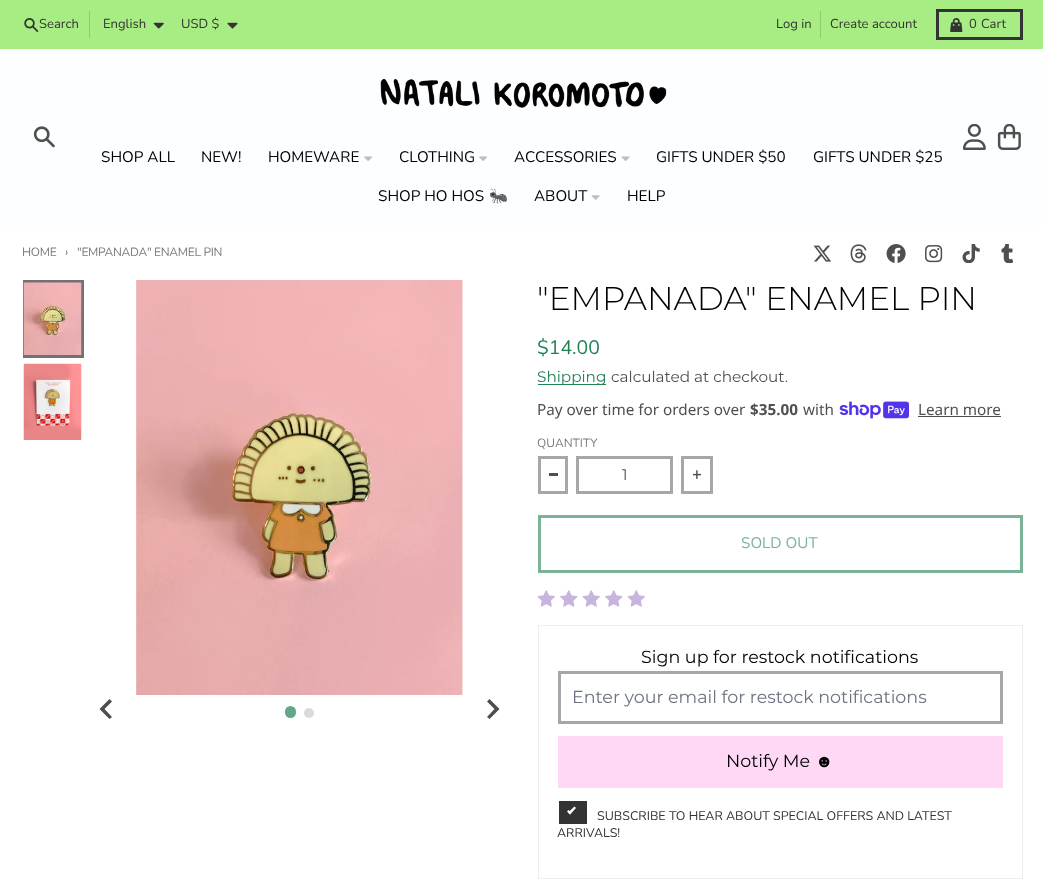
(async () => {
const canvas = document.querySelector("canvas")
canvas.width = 1043
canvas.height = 888
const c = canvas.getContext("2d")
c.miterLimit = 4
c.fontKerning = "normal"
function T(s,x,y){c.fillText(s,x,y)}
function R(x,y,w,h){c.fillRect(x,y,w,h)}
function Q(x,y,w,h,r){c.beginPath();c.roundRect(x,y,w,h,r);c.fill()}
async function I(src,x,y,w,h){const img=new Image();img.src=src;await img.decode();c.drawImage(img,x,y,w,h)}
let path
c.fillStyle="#fff"
R(0,0,1043,888)
c.fillStyle="#a8ed83"
R(0,0,1043,49)
await I("1.png",24,18,15,14)
c.font="13px Nunito"
c.fillStyle="#333"
T("Search",39,28)
c.fillStyle="#91c873"
R(89,11,1,27)
c.fillStyle="#333"
T("English",103,28)
await I("2.png",153,22,11,7)
T("USD $",181,28)
await I("3.png",227,22,11,7)
T("Log in",776,28)
c.fillStyle="#91c873"
R(820,11,1,27)
c.fillStyle="#333"
T("Create account",830,28)
c.strokeStyle="#333"
c.lineWidth=3
c.strokeRect(937.5,10.5,84,28)
await I("4.png",950,18,13,14)
T("0",969,28)
T("Cart",981,28)
c.fillStyle="#fcfeff"
R(0,49,1043,177)
await I("5.png",33,126,22,22)
await I("6.png",962,124,24,26)
await I("7.png",997,124,24,26)
await I("8.png",380,78,287,30)
c.font="15.25px Nunito"
c.fillStyle="#000"
T("SHOP ALL",101,162)
T("NEW!",201,162)
T("HOMEWARE",268,162)
await I("9.png",364,156,8,5)
T("CLOTHING",399,162)
await I("9.png",479,156,8,5)
T("ACCESSORIES",514,162)
await I("10.png",621,156,9,5)
T("GIFTS UNDER $50",656,162)
T("GIFTS UNDER $25",813,162)
T("SHOP HO HOS",378,201)
c.font="15.25px Noto Color Emoji"
T("🐜",489,201)
c.font="15.25px Nunito"
T("ABOUT",534,201)
await I("11.png",591,195,9,5)
T("HELP",627,201)
c.letterSpacing="-0.3px"
c.font="12px Nunito"
c.fillStyle="#7b7b7b"
T("HOME",22,256)
c.font="13px Nunito"
T("›",65,256)
c.font="12px Nunito"
T("\"EMPANADA\" ENAMEL PIN",77,256)
await I("12.png",813,245,18,17)
await I("13.png",850,244,17,19)
await I("14.png",886,244,20,19)
await I("15.png",925,245,18,18)
await I("16.png",962,244,18,19)
await I("17.png",1001,244,13,19)
c.save()
c.beginPath()
c.rect(23,280,61,450)
c.clip()
c.strokeStyle="#727272"
c.strokeRect(22.5,281.5,60,75)
c.restore()
await I("18.png",23,282,59,73)
await I("19.png",23,363,59,77)
await I("20.png",136,280,327,415)
c.fillStyle="#4d4d4d"
path = new Path2D("M109.5 699l2.5 2.5l-7.5 7.5l7.5 8l-2.5 2l-10-10z")
c.fill(path)
path = new Path2D("M489.5 699l-2.5 2.5l7.5 7.5l-7.5 8l2.5 2l10-10z")
c.fill(path)
c.fillStyle="#64a786"
Q(285,706,11,12,5.5)
c.fillStyle="#dadada"
c.beginPath()
c.arc(309,713,5,0,7)
c.fill()
c.letterSpacing="0px"
c.font="300 32.75px Montserrat"
c.fillStyle="#000"
T("\"EMPANADA\" ENAMEL PIN",537,310)
c.font="19.5px Nunito"
c.fillStyle="#228152"
T("$14.00",537,354)
R(538,384,68,1)
c.font="15.25px Montserrat"
T("Shipping",537,382)
c.fillStyle="#4f4f4f"
T("calculated at checkout.",611,382)
c.font="15.25px Noto Sans"
T("Pay over time for orders over",537,415)
c.font="bold 15.25px Noto Sans"
T("$35.00",750,415)
c.font="15.25px Noto Sans"
T("with",803,415)
await I("21.png",839,401,70,18)
T("Learn more",918,415)
R(918,416,83,1)
c.font="12px Nunito"
c.fillStyle="#7b7b7b"
T("QUANTITY",537,447)
c.strokeStyle="#a7a7a7"
c.strokeRect(539.5,457.5,27,35)
c.fillStyle="#4f4f4f"
R(549,473,9,3)
c.strokeRect(577.5,457.5,94,35)
c.font="15.25px Montserrat"
T("1",622,480)
c.strokeRect(682.5,457.5,29,35)
await I("22.png",693,470,8,9)
c.strokeStyle="#7ab397"
c.strokeRect(539.5,516.5,482,55)
c.font="15.25px Nunito"
c.fillStyle="#7ab397"
T("SOLD OUT",741,548)
await I("23.png",537,590,18,17)
await I("24.png",560,590,18,17)
await I("23.png",582,590,18,17)
await I("24.png",605,590,18,17)
await I("23.png",627,590,18,17)
c.strokeStyle="#eee"
c.lineWidth=1
c.strokeRect(538.5,625.5,484,253)
c.font="17.5px Montserrat"
c.fillStyle="#000"
T("Sign up for restock notifications",641,663)
c.strokeStyle="#a7a7a7"
c.lineWidth=3
c.strokeRect(559.5,672.5,442,50)
c.fillStyle="#6b7280"
T("Enter your email for restock notifications",572,703)
c.fillStyle="#ffd8f6"
R(558,736,445,52)
c.fillStyle="#000"
T("Notify Me",726,767)
c.font="17.5px Liberation Sans"
T("☻",815,767)
c.fillStyle="#333"
R(559,801,28,23)
c.fillStyle="#fff"
path = new Path2D("M574.5 806.5l1.5 1.5l-6 6.5l-2-2z")
c.fill(path)
path = new Path2D("M568.5 810l3 2.5l-1.5 2l-3-3z")
c.fill(path)
c.font="12.5px Nunito"
c.fillStyle="#333"
T("SUBSCRIBE TO HEAR ABOUT SPECIAL OFFERS AND LATEST",597,820)
T("ARRIVALS!",557,837)
})()
